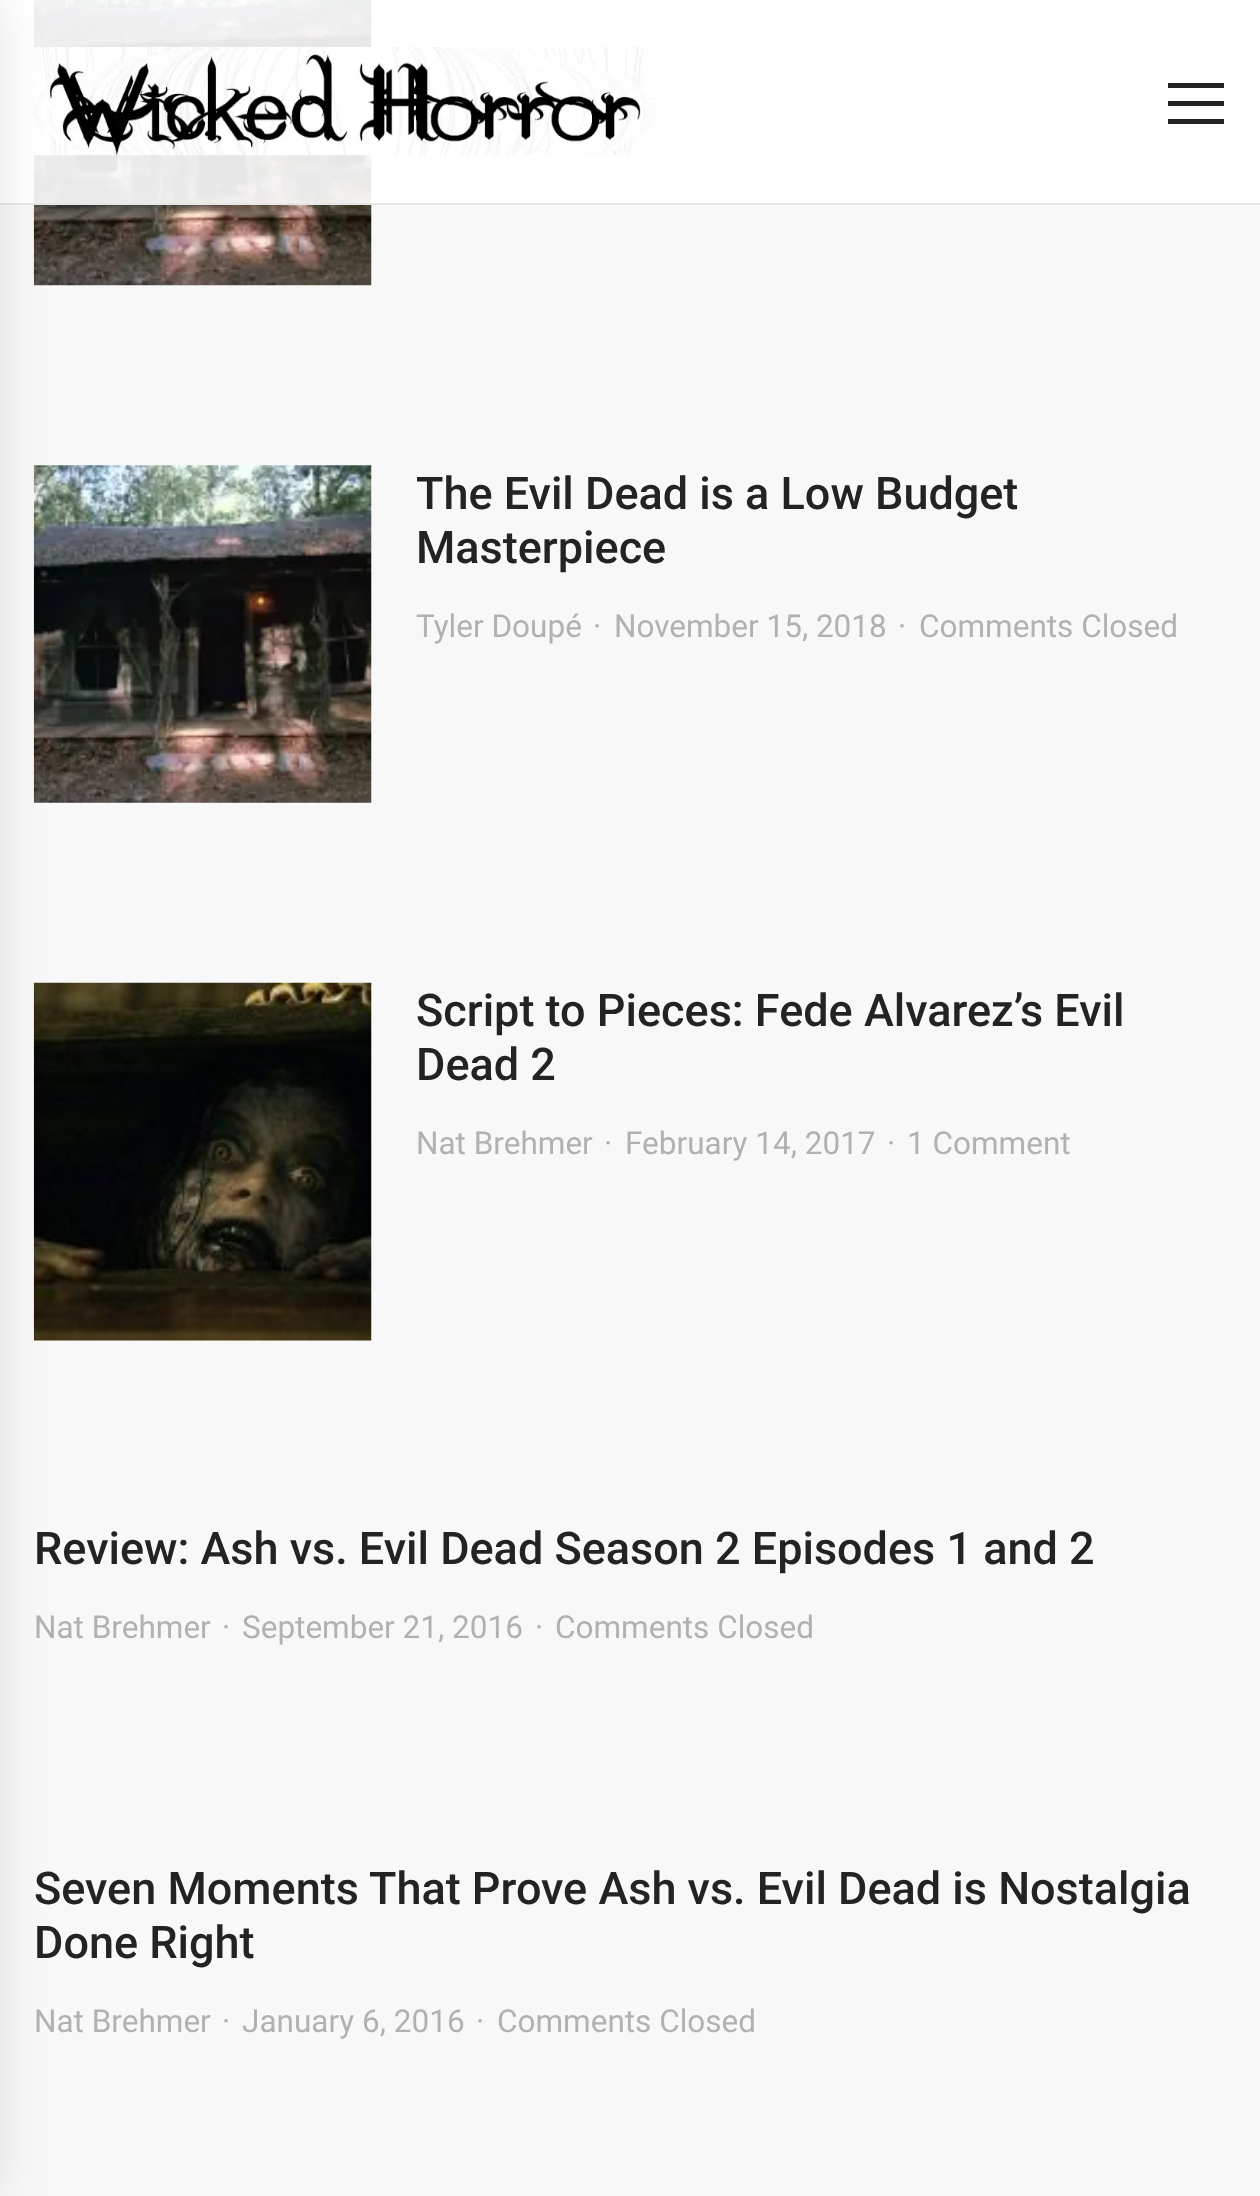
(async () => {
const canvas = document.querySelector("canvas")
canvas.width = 1260
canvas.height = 2196
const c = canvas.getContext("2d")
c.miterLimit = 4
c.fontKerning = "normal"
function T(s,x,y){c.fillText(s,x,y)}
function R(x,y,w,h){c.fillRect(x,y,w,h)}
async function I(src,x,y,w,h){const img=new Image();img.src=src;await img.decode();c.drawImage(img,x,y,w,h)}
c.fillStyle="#f8f8f8"
R(0,0,1260,2196)
await I("2.png",33,0,339,286)
c.fillStyle="#ffffffe6"
R(0,0,1260,203)
c.fillStyle="#e6e6e6"
R(0,203,1260,2)
await I("1.png",34,47,623,109)
await I("3.png",33,465,339,338)
await I("4.png",33,982,339,359)
c.fillStyle="#0000001a"
c.filter="blur(22.5px)"
c.beginPath()
c.rect(-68,0,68,2196)
c.fill()
c.filter="none"
c.fillStyle="#232323"
R(1168,101,56,5)
R(1168,83,56,5)
R(1168,119,56,5)
c.font="500 45px Roboto"
T("The Evil Dead is a Low Budget",416,509)
T("Masterpiece",416,563)
c.font="31.5px Roboto"
c.fillStyle="#b1b1b1"
T("Tyler Doupé",416,637)
T("·",593,637)
T("November 15, 2018",614,637)
T("·",898,637)
T("Comments Closed",919,637)
c.font="500 45px Roboto"
c.fillStyle="#232323"
T("Script to Pieces: Fede Alvarez’s Evil",416,1026)
T("Dead 2",416,1080)
c.font="31.5px Roboto"
c.fillStyle="#b1b1b1"
T("Nat Brehmer",416,1154)
T("·",604,1154)
T("February 14, 2017",625,1154)
T("·",887,1154)
T("1 Comment",907,1154)
c.font="500 45px Roboto"
c.fillStyle="#232323"
T("Review: Ash vs. Evil Dead Season 2 Episodes 1 and 2",34,1564)
c.font="31.5px Roboto"
c.fillStyle="#b1b1b1"
T("Nat Brehmer",34,1638)
T("·",222,1638)
T("September 21, 2016",242,1638)
T("·",535,1638)
T("Comments Closed",555,1638)
c.font="500 45px Roboto"
c.fillStyle="#232323"
T("Seven Moments That Prove Ash vs. Evil Dead is Nostalgia",34,1904)
T("Done Right",34,1958)
c.font="31.5px Roboto"
c.fillStyle="#b1b1b1"
T("Nat Brehmer",34,2032)
T("·",222,2032)
T("January 6, 2016",242,2032)
T("·",476,2032)
T("Comments Closed",497,2032)
})()
